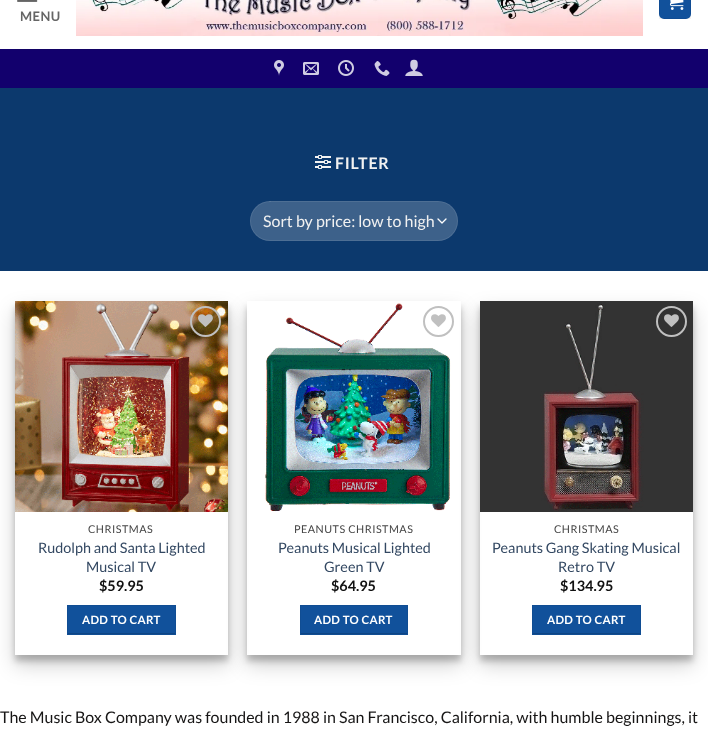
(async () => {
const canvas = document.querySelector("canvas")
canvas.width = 708
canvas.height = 739
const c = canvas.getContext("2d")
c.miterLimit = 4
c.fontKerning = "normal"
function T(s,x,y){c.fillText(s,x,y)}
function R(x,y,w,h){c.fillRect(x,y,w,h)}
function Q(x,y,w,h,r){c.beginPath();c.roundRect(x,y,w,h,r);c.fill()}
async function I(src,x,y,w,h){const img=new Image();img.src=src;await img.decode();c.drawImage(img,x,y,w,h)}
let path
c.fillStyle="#fff"
R(0,0,708,739)
await I("1.png",17,0,21,2)
c.letterSpacing="0.5px"
c.font="bold 13px Lato"
c.fillStyle="#656565"
T("MENU",20,21)
await I("2.png",76,0,567,36)
c.fillStyle="#11519b"
Q(659,-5,32,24,5)
c.strokeStyle="#0000000d"
c.strokeRect(659.5,-.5,31,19)
await I("3.png",669,0,15,10)
c.fillStyle="#12006d"
R(0,49,708,39)
c.fillStyle="#120264"
R(15,49,678,1)
await I("4.png",274,60,10,16)
await I("5.png",303,62,16,13)
await I("6.png",338,60,16,16)
await I("7.png",374,61,16,15)
await I("8.png",405,59,18,17)
c.fillStyle="#0c396d"
R(0,88,708,183)
await I("9.png",315,155,16,14)
c.letterSpacing="0.75px"
c.font="bold 16px Lato"
c.fillStyle="#f1f1f1"
T("FILTER",335,169)
c.fillStyle="#3d618a"
Q(250,201,208,40,20)
path = new Path2D("M438 219l4 4l4-4")
c.strokeStyle="#fff"
c.lineWidth=1.3
c.lineCap="round"
c.lineJoin="round"
c.stroke(path)
c.beginPath()
c.roundRect(250.5,201.5,207,39,19.5)
c.strokeStyle="#ffffff17"
c.lineWidth=1
c.lineJoin="miter"
c.stroke()
c.letterSpacing="0px"
c.font="16px Lato"
c.fillStyle="#f1f1f1"
T("Sort by price: low to high",263,227)
c.save()
path = new Path2D("M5 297h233v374h-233zm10 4h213v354h-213z")
c.clip(path,"evenodd")
c.fillStyle="#00000038"
c.filter="blur(3px)"
c.beginPath()
c.rect(15,307,213,354)
c.fill()
c.filter="none"
c.restore()
c.save()
path = new Path2D("M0 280h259v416h-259zm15 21h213v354h-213z")
c.clip(path,"evenodd")
c.fillStyle="#00000030"
c.filter="blur(10px)"
c.beginPath()
c.rect(15,311,213,354)
c.fill()
c.filter="none"
c.restore()
await I("10.png",15,301,213,211)
c.beginPath()
c.arc(205.5,321.5,14.5,0,7)
c.strokeStyle="#c0c0c0"
c.lineWidth=2
c.stroke()
await I("11.png",198,314,15,13)
c.letterSpacing="0.5px"
c.font="10.75px Lato"
c.fillStyle="#454545"
T("CHRISTMAS",88,533)
c.letterSpacing="0px"
c.font="14.4px Lato"
c.fillStyle="#334862"
T("Rudolph and Santa Lighted",38,553)
T("Musical TV",86,572)
c.font="bold 14.4px Lato"
c.fillStyle="#111"
T("$59.95",99,591)
c.fillStyle="#11519b"
R(68,606,107,27)
c.strokeStyle="#104d93"
c.lineWidth=1
c.strokeRect(67.5,605.5,108,29)
c.letterSpacing="0.3px"
c.font="bold 11.5px Lato"
c.fillStyle="#fff"
T("ADD TO CART",82,624)
c.save()
c.beginPath()
c.rect(68,606,107,28)
c.clip()
c.fillStyle="#0e4584"
path = new Path2D("M-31 507h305v226h-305zm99 98h107v28h-107z")
c.fill(path,"evenodd")
c.restore()
c.save()
path = new Path2D("M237 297h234v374h-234zm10 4h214v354h-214z")
c.clip(path,"evenodd")
c.fillStyle="#00000038"
c.filter="blur(3px)"
c.beginPath()
c.rect(247,307,214,354)
c.fill()
c.filter="none"
c.restore()
c.save()
path = new Path2D("M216 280h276v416h-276zm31 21h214v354h-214z")
c.clip(path,"evenodd")
c.fillStyle="#00000030"
c.filter="blur(10px)"
c.beginPath()
c.rect(247,311,214,354)
c.fill()
c.filter="none"
c.restore()
await I("12.png",265,303,186,209)
c.beginPath()
c.arc(438.5,321.5,14.5,0,7)
c.strokeStyle="#c0c0c0"
c.lineWidth=2
c.stroke()
await I("13.png",431,314,15,13)
c.letterSpacing="0.5px"
c.font="10.75px Lato"
c.fillStyle="#454545"
T("PEANUTS CHRISTMAS",294,533)
c.letterSpacing="0px"
c.font="14.4px Lato"
c.fillStyle="#334862"
T("Peanuts Musical Lighted",278,553)
T("Green TV",324,572)
c.font="bold 14.4px Lato"
c.fillStyle="#111"
T("$64.95",331,591)
c.fillStyle="#11519b"
R(301,606,106,27)
c.strokeStyle="#104d93"
c.lineWidth=1
c.strokeRect(300.5,605.5,107,29)
c.letterSpacing="0.3px"
c.font="bold 11.5px Lato"
c.fillStyle="#fff"
T("ADD TO CART",314,624)
c.save()
c.beginPath()
c.rect(301,606,106,28)
c.clip()
c.fillStyle="#0e4584"
path = new Path2D("M202 507h304v226h-304zm99 98h106v28h-106z")
c.fill(path,"evenodd")
c.restore()
c.save()
path = new Path2D("M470 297h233v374h-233zm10 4h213v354h-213z")
c.clip(path,"evenodd")
c.fillStyle="#00000038"
c.filter="blur(3px)"
c.beginPath()
c.rect(480,307,213,354)
c.fill()
c.filter="none"
c.restore()
c.save()
path = new Path2D("M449 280h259v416h-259zm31 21h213v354h-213z")
c.clip(path,"evenodd")
c.fillStyle="#00000030"
c.filter="blur(10px)"
c.beginPath()
c.rect(480,311,213,354)
c.fill()
c.filter="none"
c.restore()
await I("14.png",480,301,213,211)
c.beginPath()
c.arc(671.5,321.5,14.5,0,7)
c.strokeStyle="#c0c0c0"
c.lineWidth=2
c.stroke()
await I("15.png",664,314,15,13)
c.letterSpacing="0.5px"
c.font="10.75px Lato"
c.fillStyle="#454545"
T("CHRISTMAS",554,533)
c.letterSpacing="0px"
c.font="14.4px Lato"
c.fillStyle="#334862"
T("Peanuts Gang Skating Musical",492,553)
T("Retro TV",558,572)
c.font="bold 14.4px Lato"
c.fillStyle="#111"
T("$134.95",560,591)
c.fillStyle="#11519b"
R(533,606,107,27)
c.strokeStyle="#104d93"
c.lineWidth=1
c.strokeRect(532.5,605.5,108,29)
c.letterSpacing="0.3px"
c.font="bold 11.5px Lato"
c.fillStyle="#fff"
T("ADD TO CART",547,624)
c.save()
c.beginPath()
c.rect(533,606,107,28)
c.clip()
c.fillStyle="#0e4584"
path = new Path2D("M434 507h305v226h-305zm99 98h107v28h-107z")
c.fill(path,"evenodd")
c.restore()
c.letterSpacing="0px"
c.font="16px Lato"
c.fillStyle="#171616"
T("The Music Box Company was founded in 1988 in San Francisco, California, with humble beginnings, it",0,723)
})()
